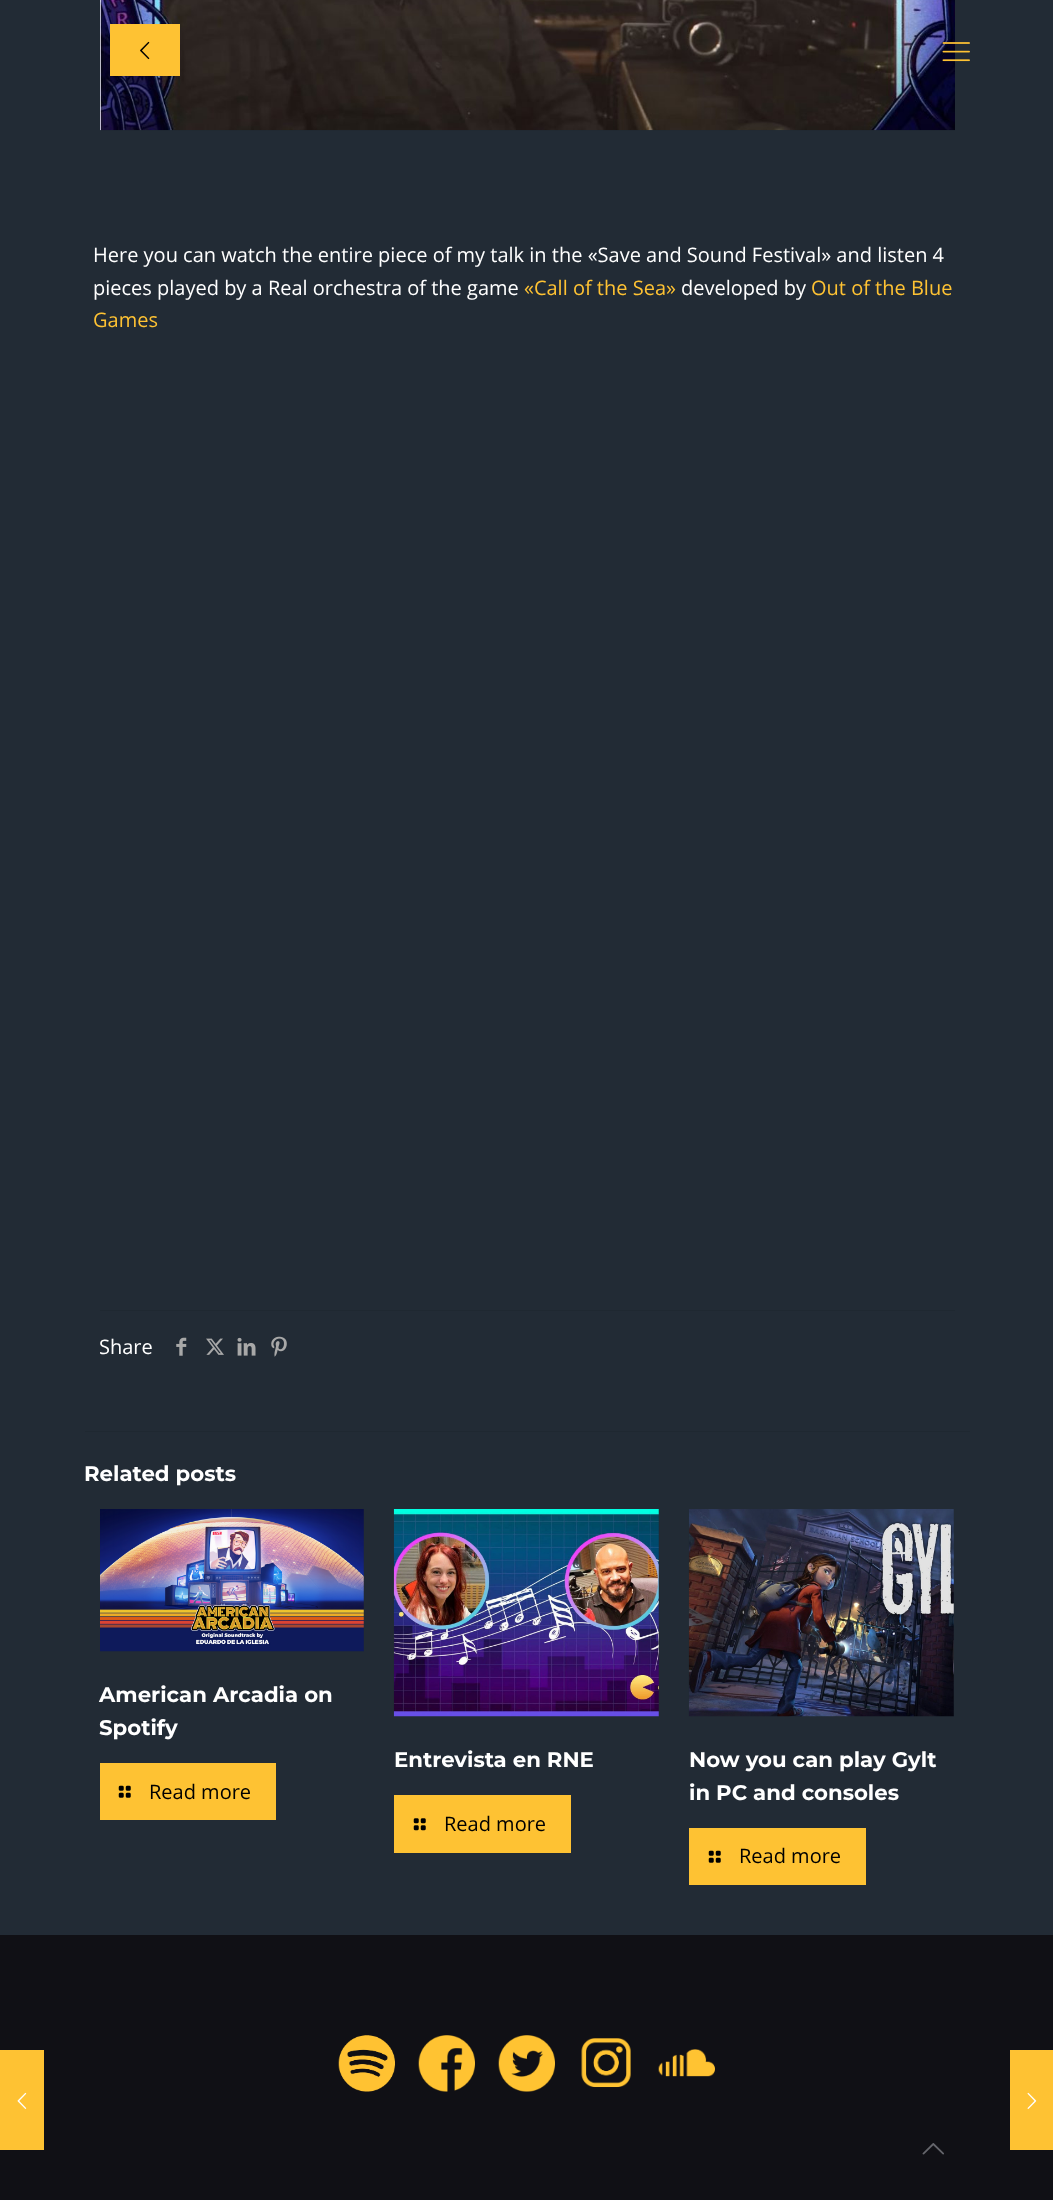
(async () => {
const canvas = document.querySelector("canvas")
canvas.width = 1053
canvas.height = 2200
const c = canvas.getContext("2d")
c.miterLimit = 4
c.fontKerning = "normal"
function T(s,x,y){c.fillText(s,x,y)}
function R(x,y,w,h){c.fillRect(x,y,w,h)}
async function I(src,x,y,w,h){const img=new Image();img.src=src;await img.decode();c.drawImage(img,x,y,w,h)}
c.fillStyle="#222b35"
R(0,0,1053,2200)
await I("3.png",100,0,855,131)
c.fillStyle="#fec233"
R(110,24,70,52)
await I("1.png",140,41,10,19)
await I("2.png",942,42,28,20)
c.font="20px Open Sans"
c.fillStyle="#fff"
T("Here you can watch the entire piece of my talk in the «Save and Sound Festival» and listen 4",93,262)
T("pieces played by a Real orchestra of the game",93,295)
c.fillStyle="#fec233"
T("«Call of the Sea»",524,295)
c.fillStyle="#fff"
T("developed by",681,295)
c.fillStyle="#fec233"
T("Out of the Blue",811,295)
T("Games",93,327)
c.fillStyle="#1f2831"
R(100,1310,855,1)
c.fillStyle="#fff"
T("Share",99,1354)
await I("4.png",176,1337,11,19)
await I("5.png",206,1338,18,17)
await I("6.png",237,1337,19,19)
await I("7.png",271,1336,16,21)
c.fillStyle="#1f2831"
R(85,1431,885,1)
c.font="bold 21.25px Montserrat"
c.fillStyle="#fff"
T("Related posts",84,1481)
await I("8.png",100,1509,264,143)
T("American Arcadia on",99,1702)
T("Spotify",99,1735)
c.fillStyle="#fec233"
R(100,1763,176,57)
await I("9.png",118,1785,13,13)
c.font="20px Open Sans"
c.fillStyle="#000"
T("Read more",149,1799)
await I("10.png",393,1509,266,208)
c.font="bold 21.25px Montserrat"
c.fillStyle="#fff"
T("Entrevista en RNE",394,1767)
c.fillStyle="#fec233"
R(394,1795,177,58)
await I("11.png",413,1818,13,13)
c.font="20px Open Sans"
c.fillStyle="#000"
T("Read more",444,1831)
await I("12.png",688,1509,266,208)
c.font="bold 21.25px Montserrat"
c.fillStyle="#fff"
T("Now you can play Gylt",689,1767)
T("in PC and consoles",689,1800)
c.fillStyle="#fec233"
R(689,1828,177,57)
await I("9.png",708,1850,13,13)
c.font="20px Open Sans"
c.fillStyle="#000"
T("Read more",739,1863)
c.fillStyle="#101015"
R(0,1935,1053,265)
await I("13.png",338,2035,57,57)
await I("14.png",418,2035,57,57)
await I("15.png",498,2035,57,57)
await I("16.png",581,2038,50,50)
await I("17.png",658,2049,57,28)
await I("18.png",922,2143,22,12)
c.fillStyle="#fec233"
R(0,2050,44,100)
await I("19.png",17,2092,10,17)
R(1010,2050,43,100)
await I("20.png",1027,2092,10,17)
})()
